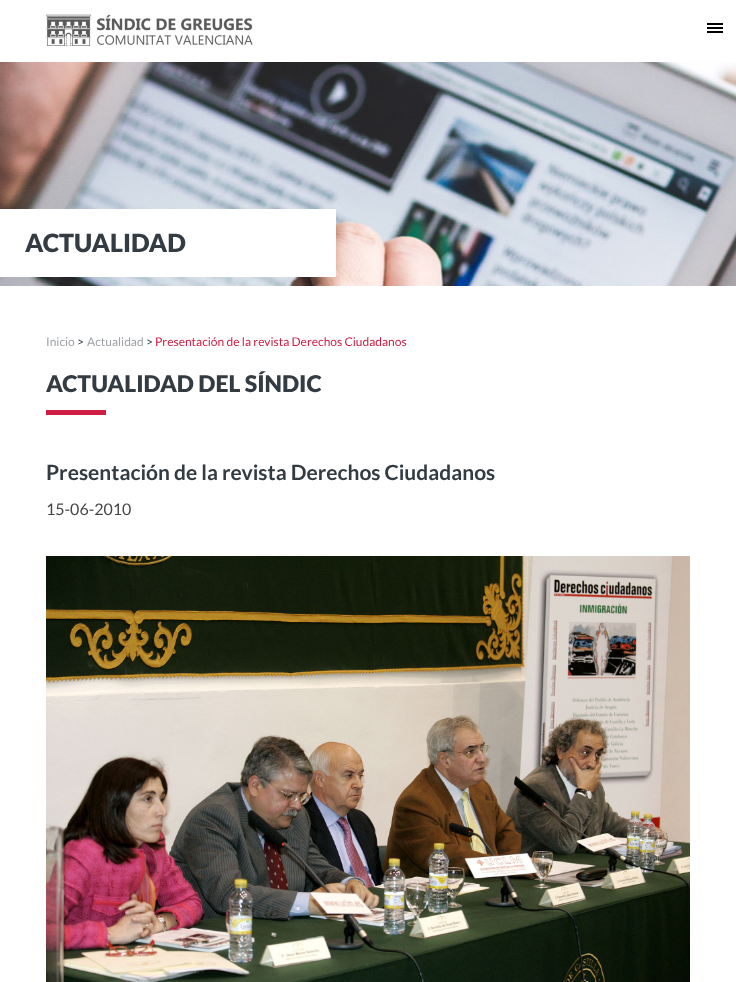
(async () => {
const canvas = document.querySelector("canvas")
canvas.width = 736
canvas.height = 982
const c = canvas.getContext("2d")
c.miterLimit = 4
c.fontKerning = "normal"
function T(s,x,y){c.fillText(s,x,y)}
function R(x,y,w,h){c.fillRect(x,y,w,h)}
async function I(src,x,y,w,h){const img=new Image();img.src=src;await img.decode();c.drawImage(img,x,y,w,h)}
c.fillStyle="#fff"
R(0,0,736,982)
await I("1.png",46,14,207,32)
c.fillStyle="#000"
R(707,23,16,2)
R(707,27,16,2)
R(707,31,16,2)
await I("2.png",0,62,736,224)
c.fillStyle="#fff"
R(0,209,336,68)
c.font="900 25px Lato"
c.fillStyle="#333c43"
T("ACTUALIDAD",25,252)
c.font="12px Lato"
c.fillStyle="#9ea1a6"
T("Inicio",46,346)
c.fillStyle="#333c43"
T(">",77,346)
c.fillStyle="#9ea1a6"
T("Actualidad",87,346)
c.fillStyle="#333c43"
T(">",146,346)
c.fillStyle="#cf1e44"
T("Presentación de la revista Derechos Ciudadanos",155,346)
c.font="900 23px Lato"
c.fillStyle="#333c43"
T("ACTUALIDAD DEL SÍNDIC",46,392)
c.fillStyle="#cf1e44"
R(46,410,60,5)
c.font="bold 21px Lato"
c.fillStyle="#333c43"
T("Presentación de la revista Derechos Ciudadanos",46,480)
c.font="16px Lato"
c.fillStyle="#454545"
T("15-06-2010",46,515)
await I("3.png",46,556,644,426)
})()
